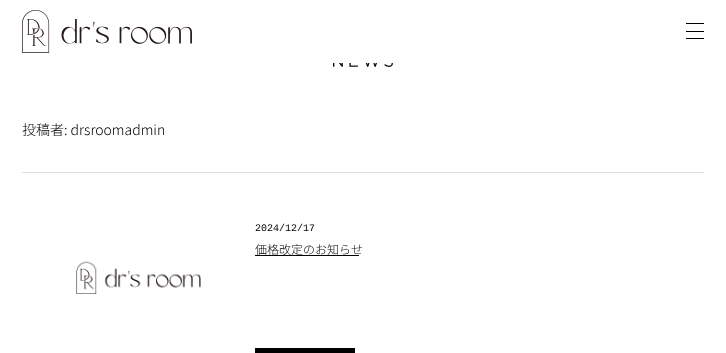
(async () => {
const canvas = document.querySelector("canvas")
canvas.width = 726
canvas.height = 353
const c = canvas.getContext("2d")
c.miterLimit = 4
c.fontKerning = "normal"
function T(s,x,y){c.fillText(s,x,y)}
function R(x,y,w,h){c.fillRect(x,y,w,h)}
async function I(src,x,y,w,h){const img=new Image();img.src=src;await img.decode();c.drawImage(img,x,y,w,h)}
c.fillStyle="#fff"
R(0,0,726,353)
await I("1.png",22,10,170,43)
c.fillStyle="#000"
R(686,23,18,1)
R(686,31,18,1)
R(686,38,18,1)
await I("2.png",333,63,60,4)
c.fillStyle="#ddd"
R(22,172,682,1)
c.font="300 14px Noto Sans JP"
c.fillStyle="#000"
T("投稿者: drsroomadmin",22,135)
c.font="10px Liberation Mono"
T("2024/12/17",255,231)
c.font="300 12px Noto Sans JP"
T("価格改定のお知らせ",255,254)
R(255,255,104,1)
R(255,348,100,5)
await I("3.png",76,261,125,33)
})()
